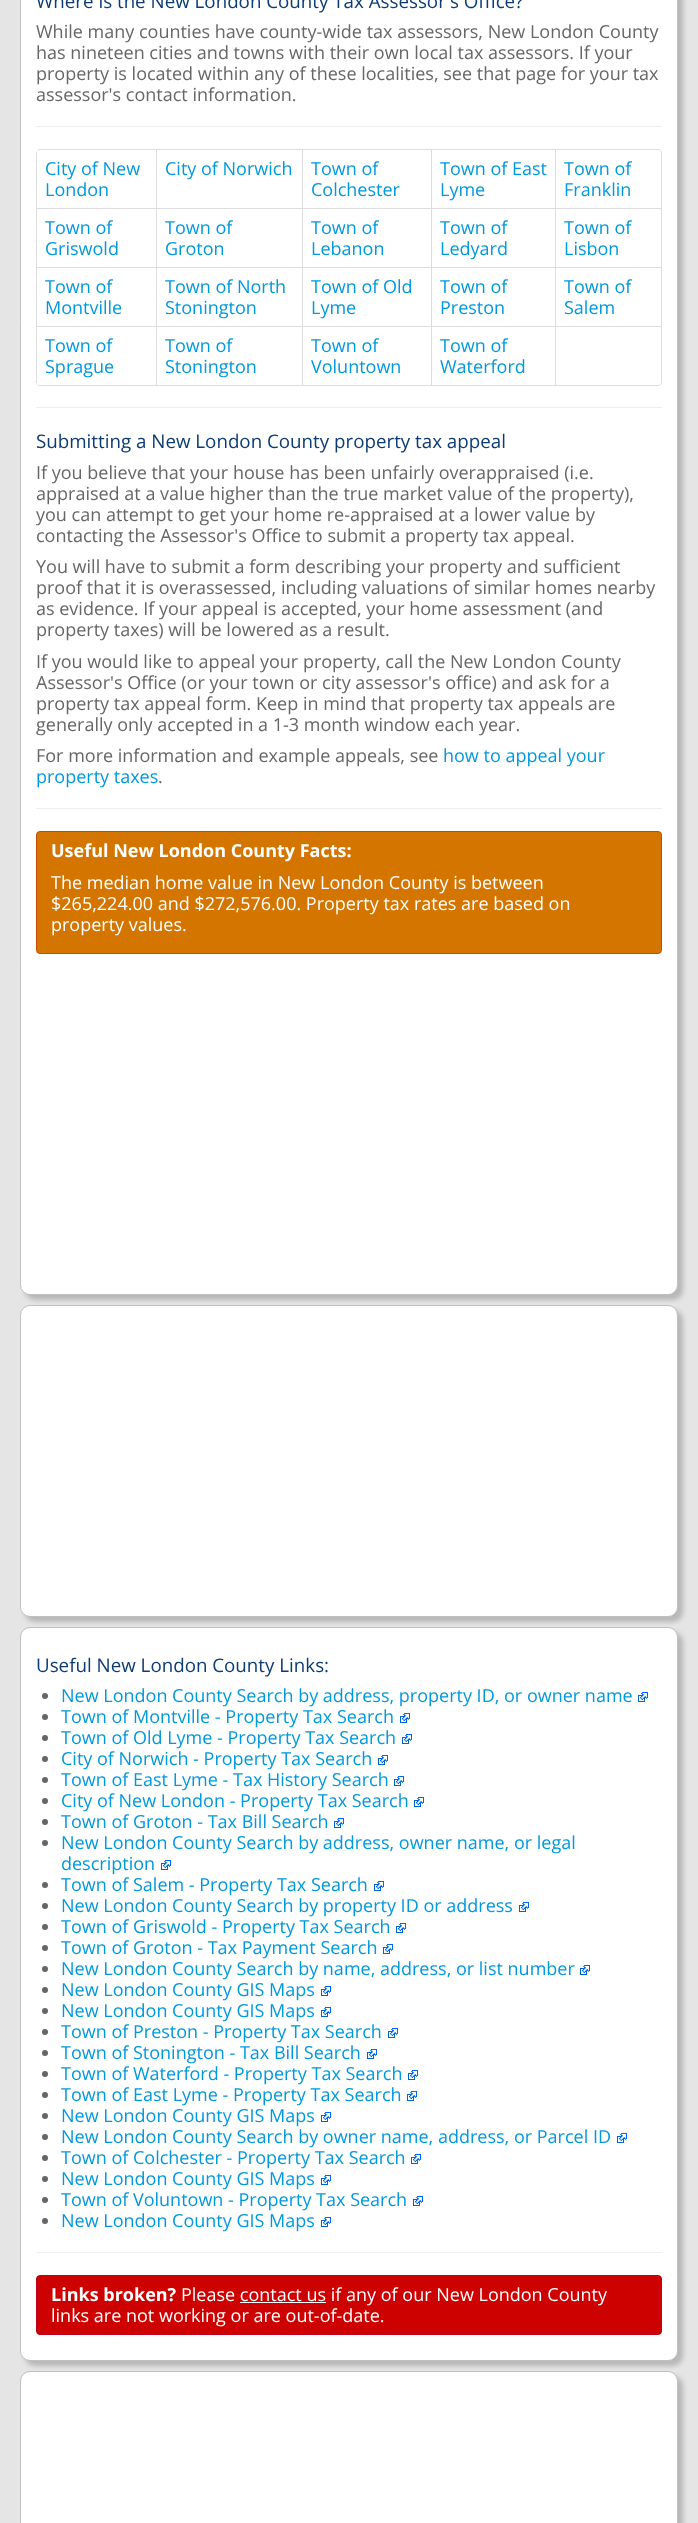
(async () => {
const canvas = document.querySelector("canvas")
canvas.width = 698
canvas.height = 2523
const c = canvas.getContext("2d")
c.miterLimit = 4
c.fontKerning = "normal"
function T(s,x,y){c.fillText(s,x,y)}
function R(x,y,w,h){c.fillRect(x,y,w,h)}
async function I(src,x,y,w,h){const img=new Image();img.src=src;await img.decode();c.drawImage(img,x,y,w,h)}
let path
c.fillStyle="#e5e5e5"
R(0,0,698,2523)
c.fillStyle="#00000033"
c.filter="blur(2.5px)"
c.beginPath()
c.roundRect(25,-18,658,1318,10)
c.fill()
c.filter="none"
c.fillStyle="#fff"
c.beginPath()
c.roundRect(20.5,-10.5,657,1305,9.5)
c.fill()
c.strokeStyle="#c0c0c0"
c.stroke()
c.font="18.75px Open Sans"
c.fillStyle="#0d3c74"
T("Where is the New London County Tax Assessor's Office?",36,8)
c.font="18px Open Sans"
c.fillStyle="#666"
T("While many counties have county-wide tax assessors, New London County",36,38)
T("has nineteen cities and towns with their own local tax assessors. If your",36,59)
T("property is located within any of these localities, see that page for your tax",36,80)
T("assessor's contact information.",36,101)
c.fillStyle="#eee"
R(36,126,626,1)
c.fillStyle="#ddd"
path = new Path2D("M40 149h618c2 0 4 2 4 4v229c0 2-2 4-4 4h-618c-2 0-4-2-4-4v-229c0-2 2-4 4-4zm0 1h618c2 0 3 1 3 3v229c0 2-1 3-3 3h-618c-2 0-4-1-4-3v-229c0-2 2-3 4-3z")
c.fill(path,"evenodd")
R(36,152,1,56)
c.fillStyle="#09d"
T("City of New",45,175)
T("London",45,196)
c.fillStyle="#ddd"
R(156,150,1,58)
c.fillStyle="#09d"
T("City of Norwich",165,175)
c.fillStyle="#ddd"
R(302,150,1,58)
c.fillStyle="#09d"
T("Town of",311,175)
T("Colchester",311,196)
c.fillStyle="#ddd"
R(431,150,1,58)
c.fillStyle="#09d"
T("Town of East",440,175)
T("Lyme",440,196)
c.fillStyle="#ddd"
R(555,150,1,58)
c.fillStyle="#09d"
T("Town of",564,175)
T("Franklin",564,196)
c.fillStyle="#ddd"
R(36,208,625,1)
R(36,208,1,59)
c.fillStyle="#09d"
T("Town of",45,234)
T("Griswold",45,255)
c.fillStyle="#ddd"
R(156,208,1,59)
c.fillStyle="#09d"
T("Town of",165,234)
T("Groton",165,255)
c.fillStyle="#ddd"
R(302,208,1,59)
c.fillStyle="#09d"
T("Town of",311,234)
T("Lebanon",311,255)
c.fillStyle="#ddd"
R(431,208,1,59)
c.fillStyle="#09d"
T("Town of",440,234)
T("Ledyard",440,255)
c.fillStyle="#ddd"
R(555,208,1,59)
c.fillStyle="#09d"
T("Town of",564,234)
T("Lisbon",564,255)
c.fillStyle="#ddd"
R(36,267,625,1)
R(36,267,1,59)
c.fillStyle="#09d"
T("Town of",45,293)
T("Montville",45,314)
c.fillStyle="#ddd"
R(156,267,1,59)
c.fillStyle="#09d"
T("Town of North",165,293)
T("Stonington",165,314)
c.fillStyle="#ddd"
R(302,267,1,59)
c.fillStyle="#09d"
T("Town of Old",311,293)
T("Lyme",311,314)
c.fillStyle="#ddd"
R(431,267,1,59)
c.fillStyle="#09d"
T("Town of",440,293)
T("Preston",440,314)
c.fillStyle="#ddd"
R(555,267,1,59)
c.fillStyle="#09d"
T("Town of",564,293)
T("Salem",564,314)
c.fillStyle="#ddd"
R(36,326,625,1)
R(36,326,1,57)
c.fillStyle="#09d"
T("Town of",45,352)
T("Sprague",45,373)
c.fillStyle="#ddd"
R(156,326,1,59)
c.fillStyle="#09d"
T("Town of",165,352)
T("Stonington",165,373)
c.fillStyle="#ddd"
R(302,326,1,59)
c.fillStyle="#09d"
T("Town of",311,352)
T("Voluntown",311,373)
c.fillStyle="#ddd"
R(431,326,1,59)
c.fillStyle="#09d"
T("Town of",440,352)
T("Waterford",440,373)
c.fillStyle="#ddd"
R(555,326,1,59)
c.fillStyle="#eee"
R(36,407,626,1)
c.font="18.75px Open Sans"
c.fillStyle="#0d3c74"
T("Submitting a New London County property tax appeal",36,448)
c.font="18px Open Sans"
c.fillStyle="#666"
T("If you believe that your house has been unfairly overappraised (i.e.",36,479)
T("appraised at a value higher than the true market value of the property),",36,500)
T("you can attempt to get your home re-appraised at a lower value by",36,521)
T("contacting the Assessor's Office to submit a property tax appeal.",36,542)
T("You will have to submit a form describing your property and sufficient",36,573)
T("proof that it is overassessed, including valuations of similar homes nearby",36,594)
T("as evidence. If your appeal is accepted, your home assessment (and",36,615)
T("property taxes) will be lowered as a result.",36,636)
T("If you would like to appeal your property, call the New London County",36,668)
T("Assessor's Office (or your town or city assessor's office) and ask for a",36,689)
T("property tax appeal form. Keep in mind that property tax appeals are",36,710)
T("generally only accepted in a 1-3 month window each year.",36,731)
T("For more information and example appeals, see",36,762)
c.fillStyle="#09d"
T("how to appeal your",443,762)
T("property taxes",36,783)
c.fillStyle="#666"
T(".",158,783)
c.fillStyle="#eee"
R(36,808,626,1)
c.fillStyle="#d47500"
c.beginPath()
c.roundRect(36.5,831.5,625,122,3.5)
c.fill()
c.strokeStyle="#c54c00"
c.stroke()
c.font="bold 18px Open Sans"
c.fillStyle="#fff"
T("Useful New London County Facts:",51,857)
c.font="18px Open Sans"
T("The median home value in New London County is between",51,889)
T("$265,224.00 and $272,576.00. Property tax rates are based on",51,910)
T("property values.",51,931)
c.fillStyle="#00000033"
c.filter="blur(2.5px)"
c.beginPath()
c.roundRect(25,1310,658,312,10)
c.fill()
c.filter="none"
c.fillStyle="#fff"
c.beginPath()
c.roundRect(20.5,1305.5,657,311,9.5)
c.fill()
c.strokeStyle="#c0c0c0"
c.stroke()
c.fillStyle="#00000033"
c.filter="blur(2.5px)"
c.beginPath()
c.roundRect(25,1632,658,734,10)
c.fill()
c.filter="none"
c.fillStyle="#fff"
c.beginPath()
c.roundRect(20.5,1627.5,657,733,9.5)
c.fill()
c.stroke()
c.font="18.75px Open Sans"
c.fillStyle="#0d3c74"
T("Useful New London County Links:",36,1672)
c.fillStyle="#666"
c.beginPath()
c.arc(45,1696,3,0,7)
c.fill()
c.font="18px Open Sans"
c.fillStyle="#09d"
T("New London County Search by address, property ID, or owner name",61,1702)
await I("1.png",638,1692,10,10)
c.fillStyle="#666"
c.beginPath()
c.arc(45,1717,3,0,7)
c.fill()
c.fillStyle="#09d"
T("Town of Montville - Property Tax Search",61,1723)
await I("1.png",400,1713,10,10)
c.fillStyle="#666"
c.beginPath()
c.arc(45,1738,3,0,7)
c.fill()
c.fillStyle="#09d"
T("Town of Old Lyme - Property Tax Search",61,1744)
await I("1.png",402,1734,10,10)
c.fillStyle="#666"
c.beginPath()
c.arc(45,1759,3,0,7)
c.fill()
c.fillStyle="#09d"
T("City of Norwich - Property Tax Search",61,1765)
await I("1.png",378,1755,10,10)
c.fillStyle="#666"
c.beginPath()
c.arc(45,1780,3,0,7)
c.fill()
c.fillStyle="#09d"
T("Town of East Lyme - Tax History Search",61,1786)
await I("1.png",394,1776,10,10)
c.fillStyle="#666"
c.beginPath()
c.arc(45,1801,3,0,7)
c.fill()
c.fillStyle="#09d"
T("City of New London - Property Tax Search",61,1807)
await I("1.png",414,1797,10,10)
c.fillStyle="#666"
c.beginPath()
c.arc(45,1822,3,0,7)
c.fill()
c.fillStyle="#09d"
T("Town of Groton - Tax Bill Search",61,1828)
await I("1.png",334,1818,10,10)
c.fillStyle="#666"
c.beginPath()
c.arc(45,1843,3,0,7)
c.fill()
c.fillStyle="#09d"
T("New London County Search by address, owner name, or legal",61,1849)
T("description",61,1870)
await I("1.png",161,1860,10,10)
c.fillStyle="#666"
c.beginPath()
c.arc(45,1885,3,0,7)
c.fill()
c.fillStyle="#09d"
T("Town of Salem - Property Tax Search",61,1891)
await I("1.png",374,1881,10,10)
c.fillStyle="#666"
c.beginPath()
c.arc(45,1906,3,0,7)
c.fill()
c.fillStyle="#09d"
T("New London County Search by property ID or address",61,1912)
await I("1.png",519,1902,10,10)
c.fillStyle="#666"
c.beginPath()
c.arc(45,1927,3,0,7)
c.fill()
c.fillStyle="#09d"
T("Town of Griswold - Property Tax Search",61,1933)
await I("1.png",396,1923,10,10)
c.fillStyle="#666"
c.beginPath()
c.arc(45,1948,3,0,7)
c.fill()
c.fillStyle="#09d"
T("Town of Groton - Tax Payment Search",61,1954)
await I("1.png",383,1944,10,10)
c.fillStyle="#666"
c.beginPath()
c.arc(45,1969,3,0,7)
c.fill()
c.fillStyle="#09d"
T("New London County Search by name, address, or list number",61,1975)
await I("1.png",580,1965,10,10)
c.fillStyle="#666"
c.beginPath()
c.arc(45,1990,3,0,7)
c.fill()
c.fillStyle="#09d"
T("New London County GIS Maps",61,1996)
await I("1.png",321,1986,10,10)
c.fillStyle="#666"
c.beginPath()
c.arc(45,2011,3,0,7)
c.fill()
c.fillStyle="#09d"
T("New London County GIS Maps",61,2017)
await I("1.png",321,2007,10,10)
c.fillStyle="#666"
c.beginPath()
c.arc(45,2032,3,0,7)
c.fill()
c.fillStyle="#09d"
T("Town of Preston - Property Tax Search",61,2038)
await I("1.png",388,2028,10,10)
c.fillStyle="#666"
c.beginPath()
c.arc(45,2053,3,0,7)
c.fill()
c.fillStyle="#09d"
T("Town of Stonington - Tax Bill Search",61,2059)
await I("1.png",367,2049,10,10)
c.fillStyle="#666"
c.beginPath()
c.arc(45,2074,3,0,7)
c.fill()
c.fillStyle="#09d"
T("Town of Waterford - Property Tax Search",61,2080)
await I("1.png",408,2070,10,10)
c.fillStyle="#666"
c.beginPath()
c.arc(45,2095,3,0,7)
c.fill()
c.fillStyle="#09d"
T("Town of East Lyme - Property Tax Search",61,2101)
await I("1.png",407,2091,10,10)
c.fillStyle="#666"
c.beginPath()
c.arc(45,2116,3,0,7)
c.fill()
c.fillStyle="#09d"
T("New London County GIS Maps",61,2122)
await I("1.png",321,2112,10,10)
c.fillStyle="#666"
c.beginPath()
c.arc(45,2137,3,0,7)
c.fill()
c.fillStyle="#09d"
T("New London County Search by owner name, address, or Parcel ID",61,2143)
await I("1.png",617,2133,10,10)
c.fillStyle="#666"
c.beginPath()
c.arc(45,2158,3,0,7)
c.fill()
c.fillStyle="#09d"
T("Town of Colchester - Property Tax Search",61,2164)
await I("1.png",411,2154,10,10)
c.fillStyle="#666"
c.beginPath()
c.arc(45,2179,3,0,7)
c.fill()
c.fillStyle="#09d"
T("New London County GIS Maps",61,2185)
await I("1.png",321,2175,10,10)
c.fillStyle="#666"
c.beginPath()
c.arc(45,2200,3,0,7)
c.fill()
c.fillStyle="#09d"
T("Town of Voluntown - Property Tax Search",61,2206)
await I("1.png",413,2196,10,10)
c.fillStyle="#666"
c.beginPath()
c.arc(45,2221,3,0,7)
c.fill()
c.fillStyle="#09d"
T("New London County GIS Maps",61,2227)
await I("1.png",321,2217,10,10)
c.fillStyle="#eee"
R(36,2252,626,1)
c.fillStyle="#cd0200"
c.beginPath()
c.roundRect(36.5,2275.5,625,59,3.5)
c.fill()
c.strokeStyle="#be001e"
c.stroke()
c.font="bold 18px Open Sans"
c.fillStyle="#fff"
T("Links broken?",51,2301)
c.font="18px Open Sans"
T("Please contact us if any of our New London County",181,2301)
R(240,2302,86,1)
T("links are not working or are out-of-date.",51,2322)
c.fillStyle="#00000033"
c.filter="blur(2.5px)"
c.beginPath()
c.roundRect(25,2376,658,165,10)
c.fill()
c.filter="none"
c.fillStyle="#fff"
c.beginPath()
c.roundRect(20.5,2371.5,657,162,9.5)
c.fill()
c.strokeStyle="#c0c0c0"
c.stroke()
})()
